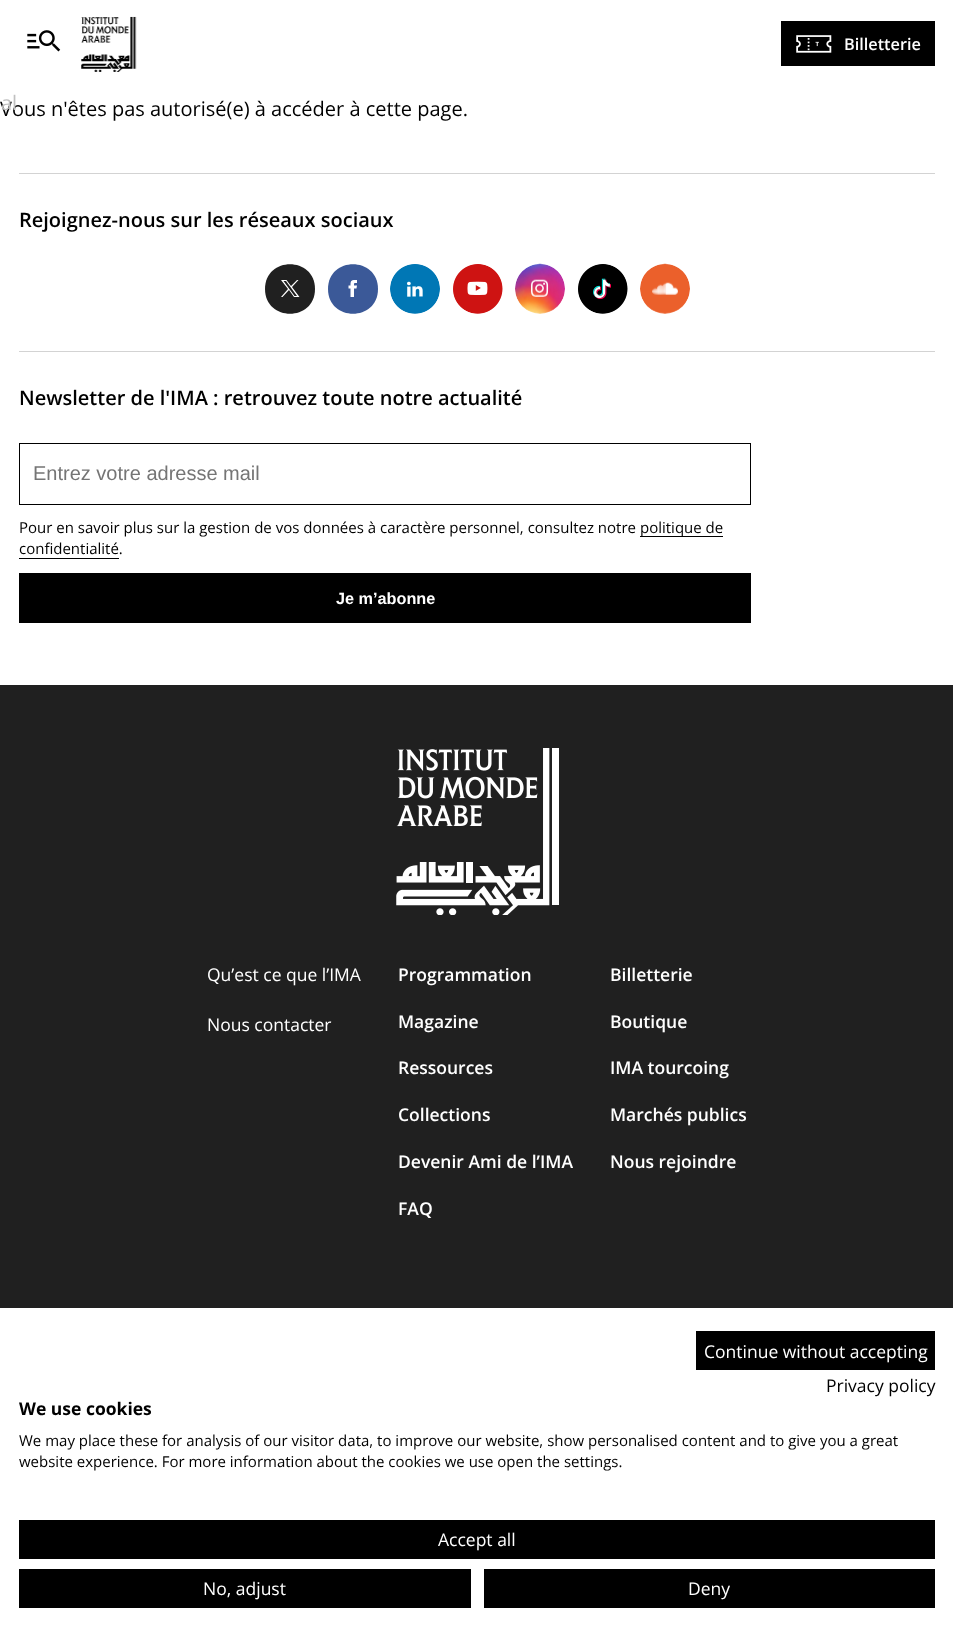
(async () => {
const canvas = document.querySelector("canvas")
canvas.width = 953
canvas.height = 1641
const c = canvas.getContext("2d")
c.miterLimit = 4
c.fontKerning = "normal"
function T(s,x,y){c.fillText(s,x,y)}
function R(x,y,w,h){c.fillRect(x,y,w,h)}
async function I(src,x,y,w,h){const img=new Image();img.src=src;await img.decode();c.drawImage(img,x,y,w,h)}
let path
c.fillStyle="#fff"
R(0,0,953,1641)
await I("1.png",81,16,56,56)
await I("2.png",27,30,34,22)
c.fillStyle="#000"
R(781,21,154,45)
await I("3.png",796,35,36,18)
c.font="600 16.25px Open Sans"
c.fillStyle="#fff"
T("Billetterie",844,50)
c.font="20px Open Sans"
c.fillStyle="#000"
T("Vous n'êtes pas autorisé(e) à accéder à cette page.",0,116)
c.fillStyle="#d3d3d3"
R(19,173,916,1)
c.font="600 20px Open Sans"
c.fillStyle="#000"
T("Rejoignez-nous sur les réseaux sociaux",19,227)
c.fillStyle="#202020"
path = new Path2D("M265 289c0-33 50-33 50 0c0 33-50 33-50 0z")
c.fill(path)
c.fillStyle="#fff"
path = new Path2D("M281 280l7 9l-7 8h1.5l6.5-7l5 7h5.5l-7.5-10l6.5-7h-1.5l-6 6l-4.5-6zm2.5 1h2.5l11 15h-2.5z")
c.fill(path)
c.fillStyle="#3b5998"
path = new Path2D("M328 289c0-33 50-33 50 0c0 33-50 33-50 0z")
c.fill(path)
c.fillStyle="#fff"
path = new Path2D("M354 297v-8.5h2.5l.5-3h-3c0-3 0-2.5 3-2.5v-3c-5.5 0-6.5 0-6.5 5.5h-2v3h2v8.5z")
c.fill(path,"evenodd")
await I("4.png",390,264,50,50)
await I("5.png",453,264,50,50)
await I("6.png",515,263,50,51)
await I("7.png",578,264,50,50)
await I("8.png",640,263,50,51)
c.fillStyle="#d3d3d3"
R(19,351,916,1)
c.fillStyle="#000"
T("Newsletter de l'IMA : retrouvez toute notre actualité",19,405)
c.strokeStyle="#000"
c.strokeRect(19.5,443.5,731,61)
c.font="20px Liberation Sans"
c.fillStyle="#757575"
T("Entrez votre adresse mail",33,480)
c.font="15px Open Sans"
c.fillStyle="#000"
T("Pour en savoir plus sur la gestion de vos données à caractère personnel, consultez notre",19,533)
R(640,536,83,1)
T("politique de",640,533)
T("confidentialité.",19,554)
R(19,558,100,1)
R(19,573,732,50)
c.font="bold 16.25px Liberation Sans"
c.fillStyle="#fff"
T("Je m’abonne",336,604)
c.fillStyle="#202020"
R(0,685,953,623)
await I("9.png",396,748,163,167)
c.font="17.5px Open Sans"
c.fillStyle="#fff"
T("Qu’est ce que l’IMA",207,981)
T("Nous contacter",207,1031)
c.font="600 17.5px Open Sans"
T("Programmation",398,981)
T("Magazine",398,1028)
T("Ressources",398,1074)
T("Collections",398,1121)
T("Devenir Ami de l’IMA",398,1168)
T("FAQ",398,1215)
T("Billetterie",610,981)
T("Boutique",610,1028)
T("IMA tourcoing",610,1074)
T("Marchés publics",610,1121)
T("Nous rejoindre",610,1168)
c.font="20px Open Sans"
c.fillStyle="#c0c0c0"
T("al",1,110)
c.fillStyle="#000"
R(696,1331,239,39)
c.font="17.5px Open Sans"
c.fillStyle="#fff"
T("Continue without accepting",704,1358)
c.fillStyle="#000"
T("Privacy policy",826,1392)
c.font="bold 17.5px Open Sans"
T("We use cookies",19,1415)
c.font="15px Open Sans"
T("We may place these for analysis of our visitor data, to improve our website, show personalised content and to give you a great",19,1446)
T("website experience. For more information about the cookies we use open the settings.",19,1467)
R(19,1520,916,39)
c.font="17.5px Open Sans"
c.fillStyle="#fff"
T("Accept all",438,1546)
c.fillStyle="#000"
R(19,1569,452,39)
c.fillStyle="#fff"
T("No, adjust",203,1595)
c.fillStyle="#000"
R(484,1569,451,39)
c.fillStyle="#fff"
T("Deny",688,1595)
})()
